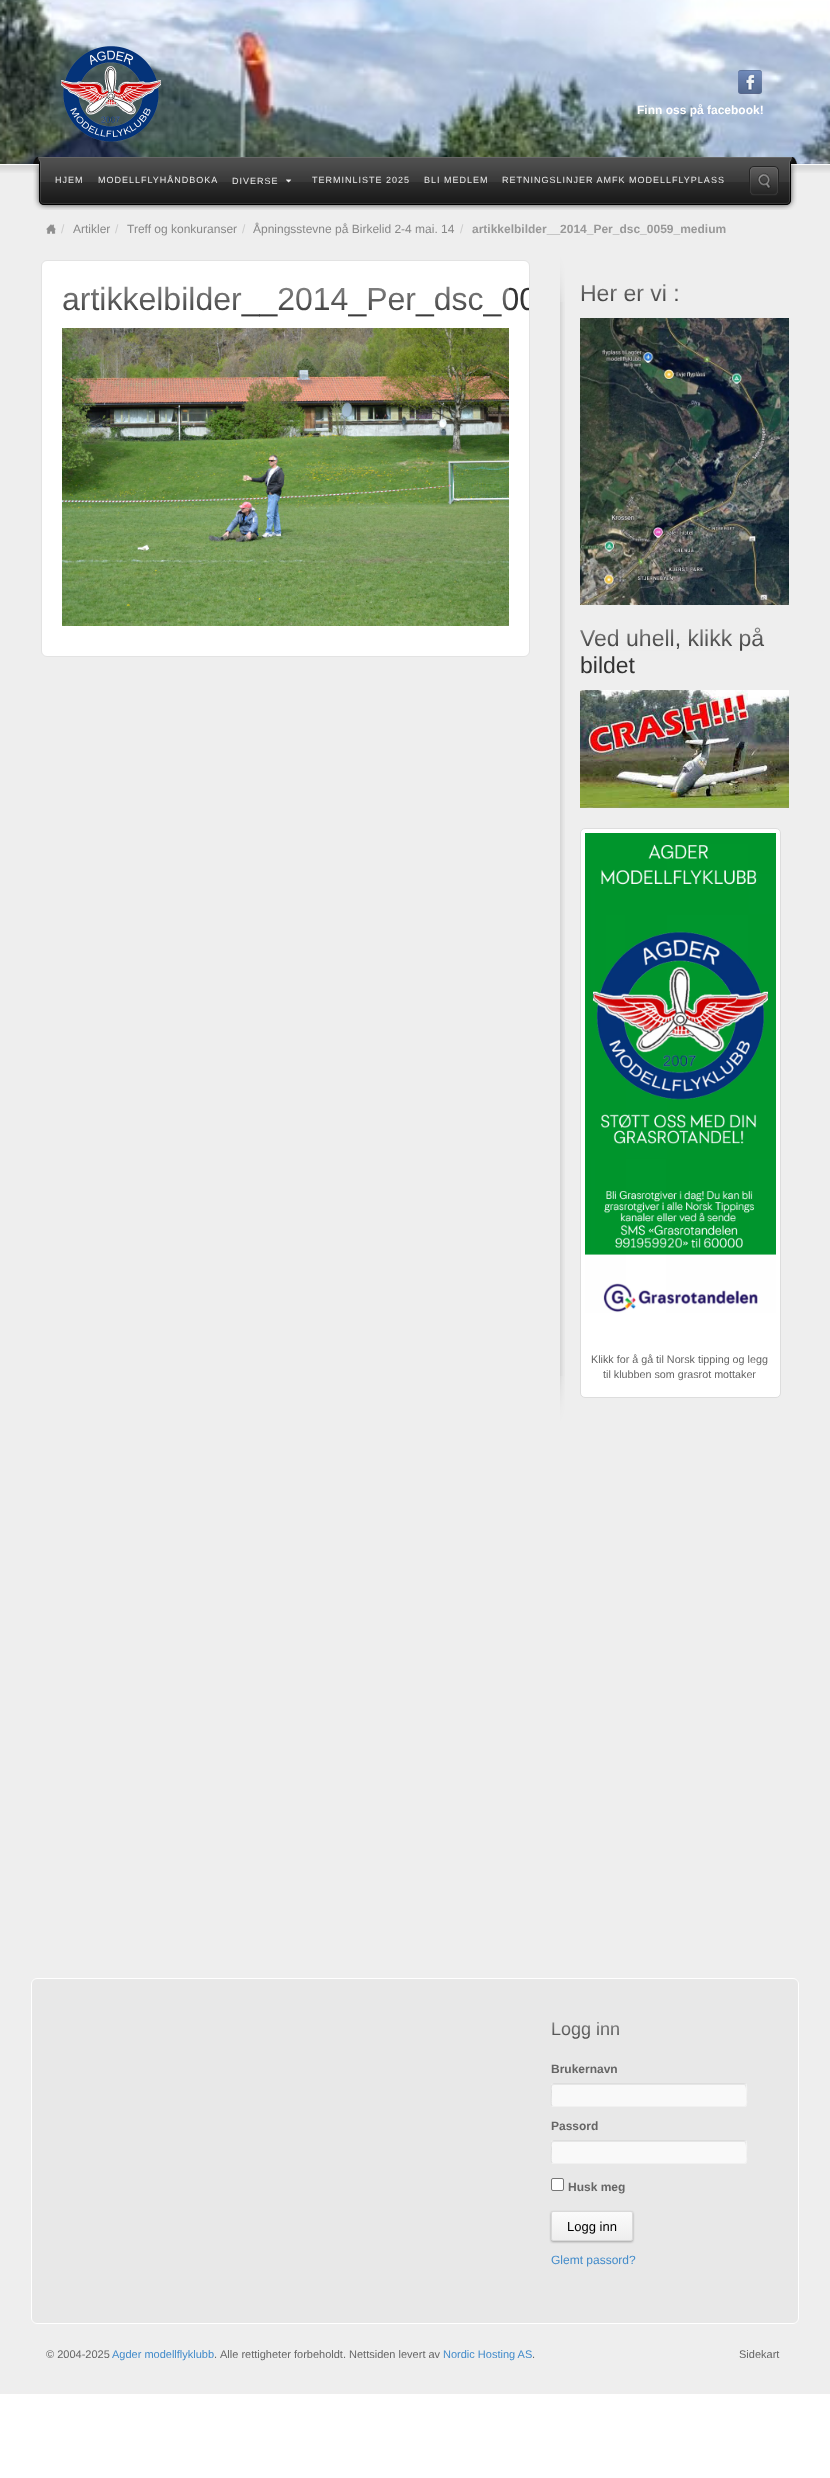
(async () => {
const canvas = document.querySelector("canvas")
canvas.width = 830
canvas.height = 2478
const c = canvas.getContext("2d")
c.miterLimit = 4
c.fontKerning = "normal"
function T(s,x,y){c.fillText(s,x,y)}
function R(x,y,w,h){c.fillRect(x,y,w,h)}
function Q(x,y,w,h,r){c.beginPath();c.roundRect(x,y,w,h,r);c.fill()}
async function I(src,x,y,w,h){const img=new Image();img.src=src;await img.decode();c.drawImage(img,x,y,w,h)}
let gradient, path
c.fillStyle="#fff"
R(0,0,830,2478)
await I("1.png",0,0,830,164)
await I("2.png",61,46,100,96)
await I("3.png",738,70,24,24)
c.font="bold 12px Liberation Sans"
T("Finn oss på facebook!",637,114)
await I("4.png",0,164,830,9)
c.fillStyle="#eee"
R(0,173,830,2221)
await I("5.png",33,157,15,53)
await I("6.png",48,157,734,53)
c.letterSpacing="1px"
c.font="9px Liberation Sans"
c.fillStyle="#eaeaea"
T("HJEM",55,183)
T("MODELLFLYHÅNDBOKA",98,183)
T("DIVERSE",232,184)
await I("7.png",286,179,6,4)
T("TERMINLISTE 2025",312,183)
T("BLI MEDLEM",424,183)
T("RETNINGSLINJER AMFK MODELLFLYPLASS",502,183)
await I("8.png",749,166,30,30)
await I("9.png",782,157,15,53)
await I("10.png",46,224,10,10)
c.letterSpacing="0px"
c.font="12px Liberation Sans"
c.fillStyle="#ccc"
T("/",61,233)
c.fillStyle="#888"
T("Artikler",73,233)
c.fillStyle="#ccc"
T("/",115,233)
c.fillStyle="#888"
T("Treff og konkuranser",127,233)
c.fillStyle="#ccc"
T("/",242,233)
c.fillStyle="#888"
T("Åpningsstevne på Birkelid 2-4 mai. 14",253,233)
c.fillStyle="#ccc"
T("/",460,233)
c.font="bold 12px Liberation Sans"
c.fillStyle="#999"
T("artikkelbilder__2014_Per_dsc_0059_medium",472,233)
c.fillStyle="#fff"
c.beginPath()
c.roundRect(41.5,260.5,488,396,5.5)
c.fill()
c.strokeStyle="#e3e3e3"
c.stroke()
c.save()
c.beginPath()
c.roundRect(42,261,487,395,5)
c.clip()
c.font="32px Liberation Sans"
c.fillStyle="#333"
T("artikkelbilder__2014_Per_dsc_00",62,310)
c.restore()
await I("11.png",63,286,446,30)
await I("12.png",62,328,447,298)
await I("13.png",560,302,5,1074)
await I("14.png",560,250,5,52)
c.font="23px Liberation Sans"
c.fillStyle="#333"
T("Her er vi :",580,301)
await I("15.png",581,284,97,17)
await I("16.png",580,318,209,287)
T("Ved uhell, klikk på",580,646)
await I("17.png",580,627,184,24)
T("bildet",580,673)
await I("18.png",580,690,209,118)
c.fillStyle="#fff"
c.beginPath()
c.roundRect(580.5,828.5,200,569,4.5)
c.fill()
c.strokeStyle="#ddd"
c.stroke()
await I("19.png",585,833,191,480)
c.font="10.75px Liberation Sans"
c.fillStyle="#666"
T("Klikk for å gå til Norsk tipping og legg",591,1363)
T("til klubben som grasrot mottaker",603,1378)
await I("20.png",560,1376,5,52)
c.fillStyle="#e8e8e8"
c.beginPath()
c.roundRect(31.5,1978.5,767,345,5.5)
c.fill()
c.strokeStyle="#fff"
c.stroke()
c.font="18px Liberation Sans"
c.fillStyle="#333"
T("Logg inn",551,2035)
await I("21.png",552,2021,68,18)
c.font="bold 12px Liberation Sans"
c.fillStyle="#666"
T("Brukernavn",551,2073)
c.fillStyle="#f9f9f9"
Q(551,2083,196,24,3)
c.fillStyle="#e6e6e6"
path = new Path2D("M554 2085h190c1 0 2 2 2 5v-4c0-1-1-2-2-2h-190c-1 0-2 1-2 2c0 0 1-1 2-1zm-2 20v-2z")
c.fill(path,"evenodd")
path = new Path2D("M746 2084c1.5 2 .5 11.5 .5 14c0 2 1.5 8.5-2.5 8.5h-190l-2-.5")
c.strokeStyle="#f1f1f1"
c.stroke(path)
path = new Path2D("M552 2106c-1.5-2-.5-11.5-.5-14c0-2-1.5-8.5 2.5-8.5h190l2 .5")
c.strokeStyle="#ddd"
c.stroke(path)
c.fillStyle="#666"
T("Passord",551,2130)
c.fillStyle="#f9f9f9"
Q(551,2140,196,24,3)
c.fillStyle="#e6e6e6"
path = new Path2D("M554 2142h190c1 0 2 2 2 5v-4c0-1-1-2-2-2h-190c-1 0-2 1-2 2c0 0 1-1 2-1zm-2 20v-2z")
c.fill(path,"evenodd")
path = new Path2D("M746 2141c1.5 2 .5 11.5 .5 14c0 2 1.5 8.5-2.5 8.5h-190l-2-.5")
c.strokeStyle="#f1f1f1"
c.stroke(path)
path = new Path2D("M552 2163c-1.5-2-.5-11.5-.5-14c0-2-1.5-8.5 2.5-8.5h190l2 .5")
c.strokeStyle="#ddd"
c.stroke(path)
c.fillStyle="#fff"
c.beginPath()
c.roundRect(551.5,2178.5,12,12,1.5)
c.fill()
c.strokeStyle="#767676"
c.stroke()
c.fillStyle="#666"
T("Husk meg",568,2191)
c.fillStyle="#0000004d"
c.filter="blur(1px)"
c.beginPath()
c.roundRect(551,2212,82,30,2)
c.fill()
c.filter="none"
c.save()
c.beginPath()
c.roundRect(551,2211,82,30,2)
c.clip()
gradient = c.createLinearGradient(592,2212,592,2240)
gradient.addColorStop(0,"#fbfbfb")
gradient.addColorStop(1,"#eee")
c.fillStyle = gradient
R(551,2212,82,28)
c.restore()
c.beginPath()
c.roundRect(551.5,2211.5,81,29,1.5)
c.strokeStyle="#d9d9d9"
c.stroke()
c.font="13px Liberation Sans"
c.fillStyle="#000"
T("Logg inn",567,2231)
c.font="12px Liberation Sans"
c.fillStyle="#428bca"
T("Glemt passord?",551,2264)
c.font="11px Liberation Sans"
c.fillStyle="#666"
T("© 2004-2025",46,2358)
c.fillStyle="#428bca"
T("Agder modellflyklubb",112,2358)
c.fillStyle="#666"
T(".",214,2358)
T("Alle rettigheter forbeholdt. Nettsiden levert av",220,2358)
c.fillStyle="#428bca"
T("Nordic Hosting AS",443,2358)
c.fillStyle="#666"
T(".",532,2358)
T("Sidekart",739,2358)
})()
